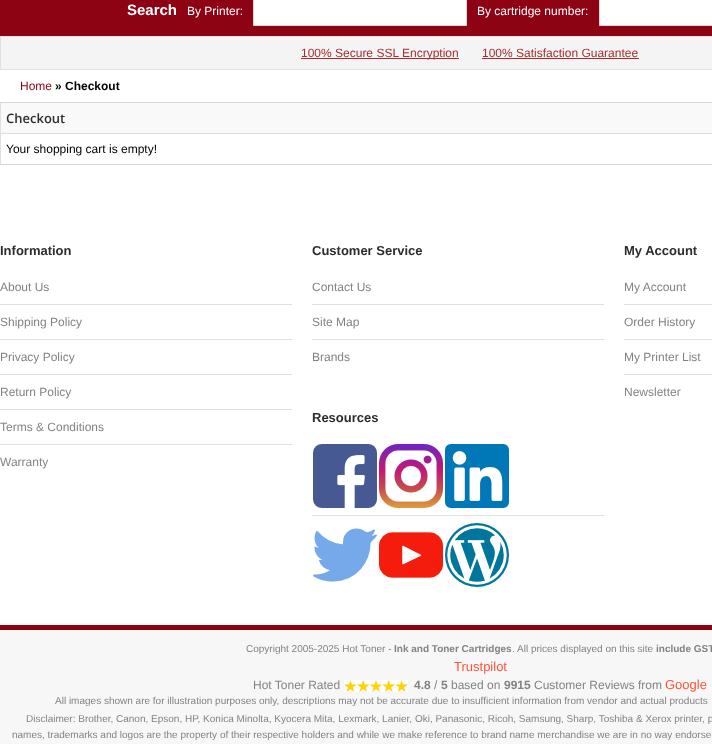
(async () => {
const canvas = document.querySelector("canvas")
canvas.width = 712
canvas.height = 744
const c = canvas.getContext("2d")
c.miterLimit = 4
c.fontKerning = "normal"
function T(s,x,y){c.fillText(s,x,y)}
function R(x,y,w,h){c.fillRect(x,y,w,h)}
async function I(src,x,y,w,h){const img=new Image();img.src=src;await img.decode();c.drawImage(img,x,y,w,h)}
c.fillStyle="#fff"
R(0,0,712,744)
c.fillStyle="#8e0314"
R(0,0,712,36)
c.font="bold 15px Liberation Sans"
c.fillStyle="#fff"
T("Search",127,15)
c.font="12px Liberation Sans"
T("By Printer:",187,15)
c.beginPath()
c.rect(253.5,-.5,213,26)
c.fill()
c.strokeStyle="#d7d7d7"
c.stroke()
T("By cartridge number:",477,15)
c.beginPath()
c.rect(599.5,-.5,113,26)
c.fill()
c.stroke()
c.fillStyle="#f4f4f4"
c.beginPath()
c.rect(.5,36.5,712,33)
c.fill()
c.strokeStyle="#e1e0e0"
c.stroke()
c.fillStyle="#a72d2c"
R(301,58,158,1)
T("100% Secure SSL Encryption",301,57)
T("100% Satisfaction Guarantee",482,57)
R(482,58,157,1)
c.fillStyle="#8e0314"
T("Home",20,90)
c.font="bold 12px Liberation Sans"
c.fillStyle="#000"
T("» Checkout",55,90)
c.fillStyle="#d7d7d7"
R(0,102,712,1)
R(0,164,712,1)
c.fillStyle="#f9f9f9"
R(1,103,711,30)
c.fillStyle="#e1e0e0"
R(0,103,1,30)
c.font="600 13px Open Sans"
c.fillStyle="#2d2d2d"
T("Checkout",6,123)
c.fillStyle="#e1e0e0"
R(0,133,712,1)
R(0,133,1,31)
c.font="12px Liberation Sans"
c.fillStyle="#000"
T("Your shopping cart is empty!",6,153)
c.font="bold 13px Liberation Sans"
c.fillStyle="#2d2d2d"
T("Information",0,255)
c.font="12px Liberation Sans"
c.fillStyle="#848383"
T("About Us",0,291)
c.fillStyle="#e1e0e0"
R(0,304,292,1)
c.fillStyle="#848383"
T("Shipping Policy",0,326)
c.fillStyle="#e1e0e0"
R(0,339,292,1)
c.fillStyle="#848383"
T("Privacy Policy",0,361)
c.fillStyle="#e1e0e0"
R(0,374,292,1)
c.fillStyle="#848383"
T("Return Policy",0,396)
c.fillStyle="#e1e0e0"
R(0,409,292,1)
c.fillStyle="#848383"
T("Terms & Conditions",0,431)
c.fillStyle="#e1e0e0"
R(0,444,292,1)
c.fillStyle="#848383"
T("Warranty",0,466)
c.font="bold 13px Liberation Sans"
c.fillStyle="#2d2d2d"
T("Customer Service",312,255)
c.font="12px Liberation Sans"
c.fillStyle="#848383"
T("Contact Us",312,291)
c.fillStyle="#e1e0e0"
R(312,304,292,1)
c.fillStyle="#848383"
T("Site Map",312,326)
c.fillStyle="#e1e0e0"
R(312,339,292,1)
c.fillStyle="#848383"
T("Brands",312,361)
c.font="bold 13px Liberation Sans"
c.fillStyle="#2d2d2d"
T("My Account",624,255)
c.font="12px Liberation Sans"
c.fillStyle="#848383"
T("My Account",624,291)
c.fillStyle="#e1e0e0"
R(624,304,88,1)
c.fillStyle="#848383"
T("Order History",624,326)
c.fillStyle="#e1e0e0"
R(624,339,88,1)
c.fillStyle="#848383"
T("My Printer List",624,361)
c.fillStyle="#e1e0e0"
R(624,374,88,1)
c.fillStyle="#848383"
T("Newsletter",624,396)
c.font="bold 13px Liberation Sans"
c.fillStyle="#2d2d2d"
T("Resources",312,422)
await I("1.png",313,444,64,64)
await I("2.png",379,444,64,64)
await I("3.png",445,444,64,64)
c.fillStyle="#e1e0e0"
R(312,515,292,1)
await I("4.png",313,528,64,54)
await I("5.png",379,532,64,46)
await I("6.png",445,523,64,64)
c.fillStyle="#f7f7f7"
R(0,630,712,114)
c.fillStyle="#8e0314"
R(0,625,712,5)
c.font="10px Liberation Sans"
c.fillStyle="#848383"
T("Copyright 2005-2025 Hot Toner -",246,652)
c.font="bold 10px Liberation Sans"
T("Ink and Toner Cartridges",394,652)
c.font="10px Liberation Sans"
T(". All prices displayed on this site",512,652)
c.font="bold 10px Liberation Sans"
T("include GST",656,652)
c.font="13px Liberation Sans"
c.fillStyle="#fe5338"
T("Trustpilot",454,671)
c.font="12px Liberation Sans"
c.fillStyle="#848383"
T("Hot Toner Rated",253,689)
await I("7.png",344,680,64,12)
c.font="bold 12px Liberation Sans"
T("4.8",414,689)
c.font="12px Liberation Sans"
T("/",434,689)
c.font="bold 12px Liberation Sans"
T("5",441,689)
c.font="12px Liberation Sans"
T("based on",451,689)
c.font="bold 12px Liberation Sans"
T("9915",504,689)
c.font="12px Liberation Sans"
T("Customer Reviews from",534,689)
c.font="13px Liberation Sans"
c.fillStyle="#fe5338"
T("Google",665,689)
c.font="10px Liberation Sans"
c.fillStyle="#848383"
T("All images shown are for illustration purposes only, descriptions may not be accurate due to insufficient information from vendor and actual products",55,704)
T("Disclaimer: Brother, Canon, Epson, HP, Konica Minolta, Kyocera Mita, Lexmark, Lanier, Oki, Panasonic, Ricoh, Samsung, Sharp, Toshiba & Xerox printer, p",26,722)
T("names, trademarks and logos are the property of their respective holders and while we make reference to brand name merchandise we are in no way endorse",12,738)
})()
